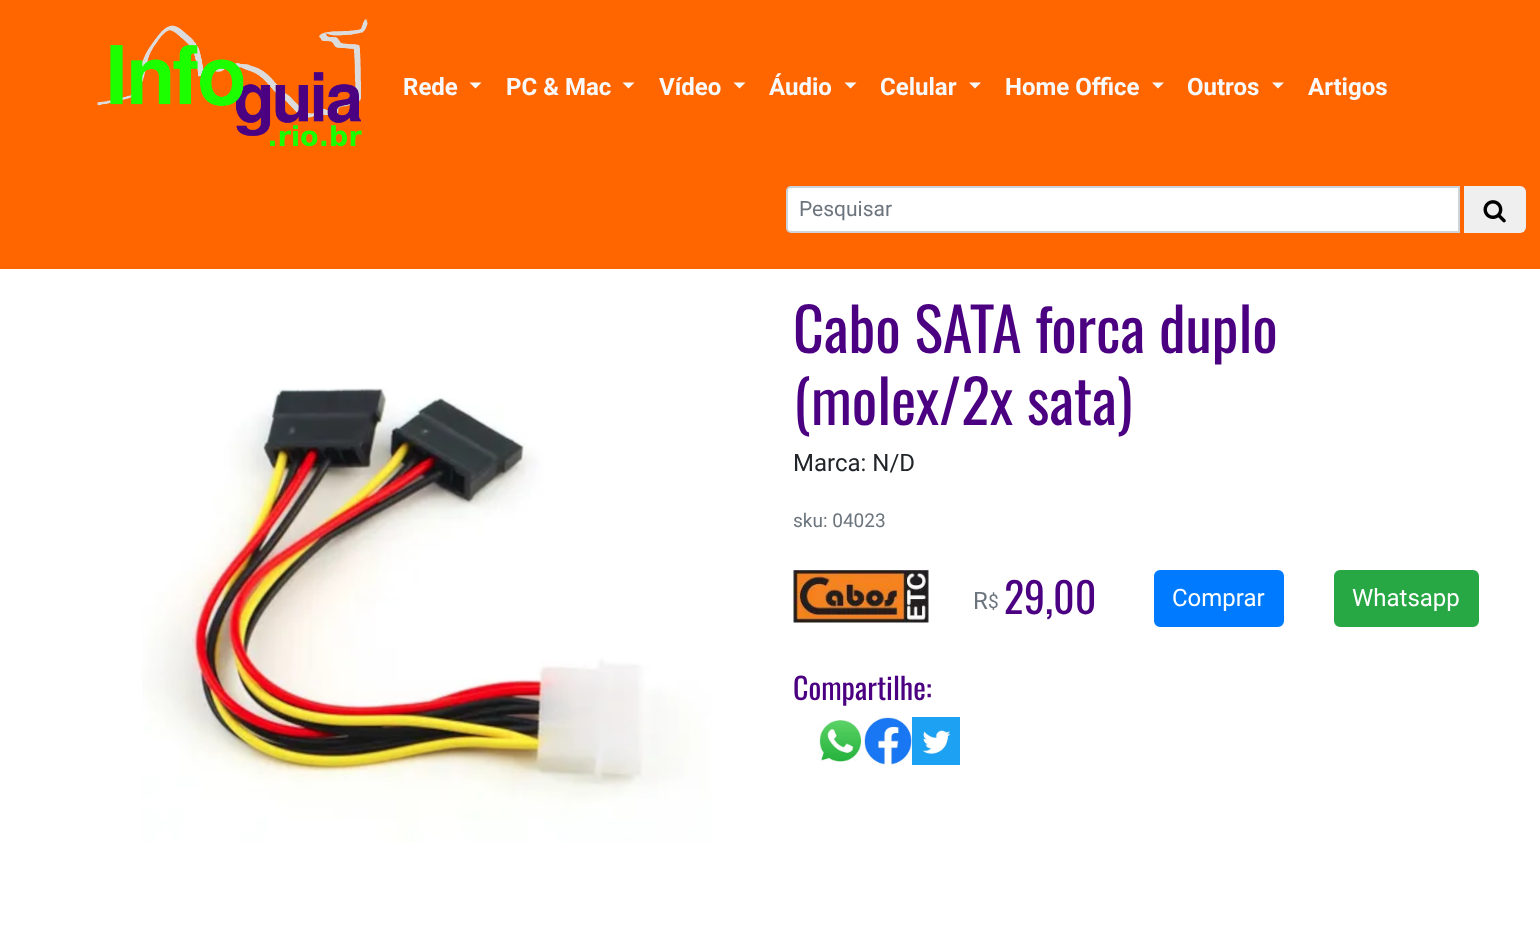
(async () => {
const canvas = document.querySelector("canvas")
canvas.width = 1540
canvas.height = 942
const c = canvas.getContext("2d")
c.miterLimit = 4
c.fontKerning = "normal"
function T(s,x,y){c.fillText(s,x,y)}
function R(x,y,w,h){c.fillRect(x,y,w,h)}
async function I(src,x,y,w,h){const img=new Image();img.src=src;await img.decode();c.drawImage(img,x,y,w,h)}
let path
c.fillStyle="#fff"
R(0,0,1540,942)
c.fillStyle="#f60"
R(0,0,1540,269)
await I("1.png",97,19,271,128)
c.font="bold 24px Roboto"
c.fillStyle="#f8f9fa"
T("Rede",403,95)
path = new Path2D("M469.5 82.5h12l-6 6z")
c.fill(path)
T("PC & Mac",506,95)
path = new Path2D("M622.5 82.5h12l-6 6z")
c.fill(path)
T("Vídeo",659,95)
path = new Path2D("M733.5 82.5h12l-6 6z")
c.fill(path)
T("Áudio",769,95)
path = new Path2D("M844.5 82.5h12l-6 6z")
c.fill(path)
T("Celular",880,95)
path = new Path2D("M969 82.5h12l-6 6z")
c.fill(path)
T("Home Office",1005,95)
path = new Path2D("M1152 82.5h12l-6 6z")
c.fill(path)
T("Outros",1187,95)
path = new Path2D("M1272 82.5h12l-6 6z")
c.fill(path)
T("Artigos",1308,95)
c.fillStyle="#fff"
c.beginPath()
c.roundRect(787,187,672,45,[4,0,0,4])
c.fill()
c.strokeStyle="#ced4da"
c.lineWidth=2
c.stroke()
c.font="21px Roboto"
c.fillStyle="#6c757d"
T("Pesquisar",799,216)
c.fillStyle="#efefef"
c.beginPath()
c.roundRect(1464,186,62,47,[0,6,6,0])
c.fill()
await I("2.png",1483,200,23,23)
await I("3.png",142,388,569,454)
c.font="60px Oswald"
c.fillStyle="#4b0082"
T("Cabo SATA forca duplo",793,353)
T("(molex/2x sata)",793,425)
c.font="24px Roboto"
c.fillStyle="#212529"
T("Marca: N/D",793,471)
c.font="19px Roboto"
c.fillStyle="#6c757d"
T("sku: 04023",793,527)
await I("4.png",793,570,136,53)
c.font="24px Roboto"
T("R",973,609)
c.font="19px Roboto"
T("$",988,608)
c.font="42px Oswald"
c.fillStyle="#4b0082"
T("29,00",1004,614)
c.fillStyle="#007bff"
c.beginPath()
c.roundRect(1155,571,128,55,5)
c.fill()
c.strokeStyle="#007bff"
c.stroke()
c.font="24px Roboto"
c.fillStyle="#fff"
T("Comprar",1172,606)
c.fillStyle="#28a745"
c.beginPath()
c.roundRect(1335,571,143,55,5)
c.fill()
c.strokeStyle="#28a745"
c.stroke()
c.fillStyle="#fff"
T("Whatsapp",1352,606)
c.font="30px Oswald"
c.fillStyle="#4b0082"
T("Compartilhe:",793,700)
await I("5.png",818,720,46,42)
await I("6.png",864,717,48,48)
await I("7.png",912,717,48,48)
})()
